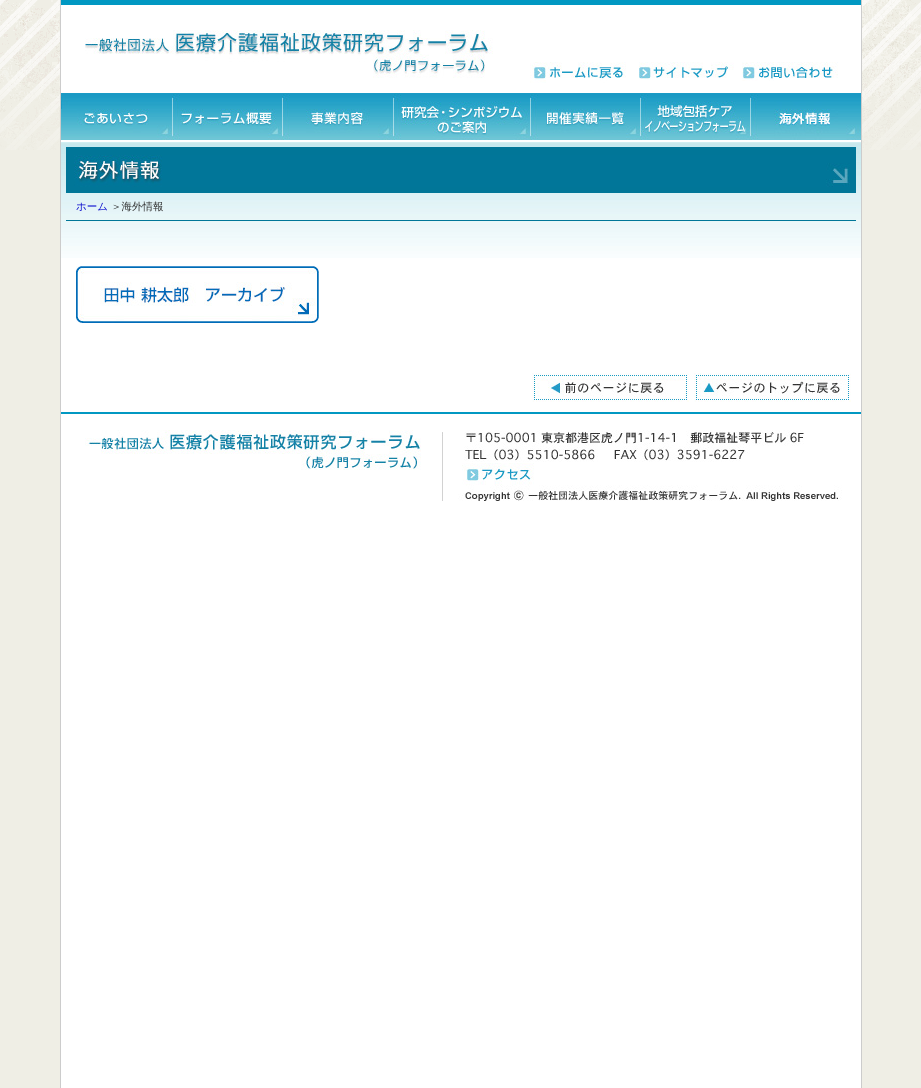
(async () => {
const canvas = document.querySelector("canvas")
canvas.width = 921
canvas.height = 1088
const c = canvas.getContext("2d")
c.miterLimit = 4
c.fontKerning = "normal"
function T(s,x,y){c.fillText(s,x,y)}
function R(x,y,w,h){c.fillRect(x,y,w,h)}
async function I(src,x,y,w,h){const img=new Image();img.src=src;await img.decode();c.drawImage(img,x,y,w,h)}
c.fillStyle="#efeee5"
R(0,0,921,1088)
await I("1.png",0,0,921,150)
c.fillStyle="#ccc"
R(60,0,1,1088)
c.fillStyle="#fff"
R(61,5,800,1083)
c.fillStyle="#0198c2"
R(61,0,800,5)
await I("2.png",85,30,408,48)
await I("3.png",530,62,96,21)
await I("4.png",639,62,95,18)
await I("5.png",742,62,96,19)
await I("6.png",61,93,111,47)
await I("7.png",172,93,110,47)
await I("8.png",282,93,111,47)
await I("9.png",393,93,137,47)
await I("10.png",530,93,110,47)
await I("11.png",640,93,110,47)
await I("12.png",750,93,111,47)
await I("13.png",61,142,800,116)
c.fillStyle="#017698"
R(66,147,790,46)
await I("14.png",74,155,776,32)
c.font="500 10.5px WenQuanYi Zen Hei"
c.fillStyle="#00c"
T("ホーム",76,210)
c.fillStyle="#2f2f2f"
T("＞海外情報",111,210)
c.fillStyle="#017698"
R(66,220,790,1)
await I("15.png",76,266,243,57)
await I("16.png",532,373,157,29)
await I("17.png",694,373,157,29)
c.fillStyle="#0198c2"
R(61,412,800,2)
await I("18.png",85,430,336,40)
await I("19.png",442,432,1,53)
await I("20.png",464,430,340,32)
await I("21.png",462,463,72,22)
await I("22.png",442,485,400,16)
c.fillStyle="#ccc"
R(861,0,1,1088)
})()
